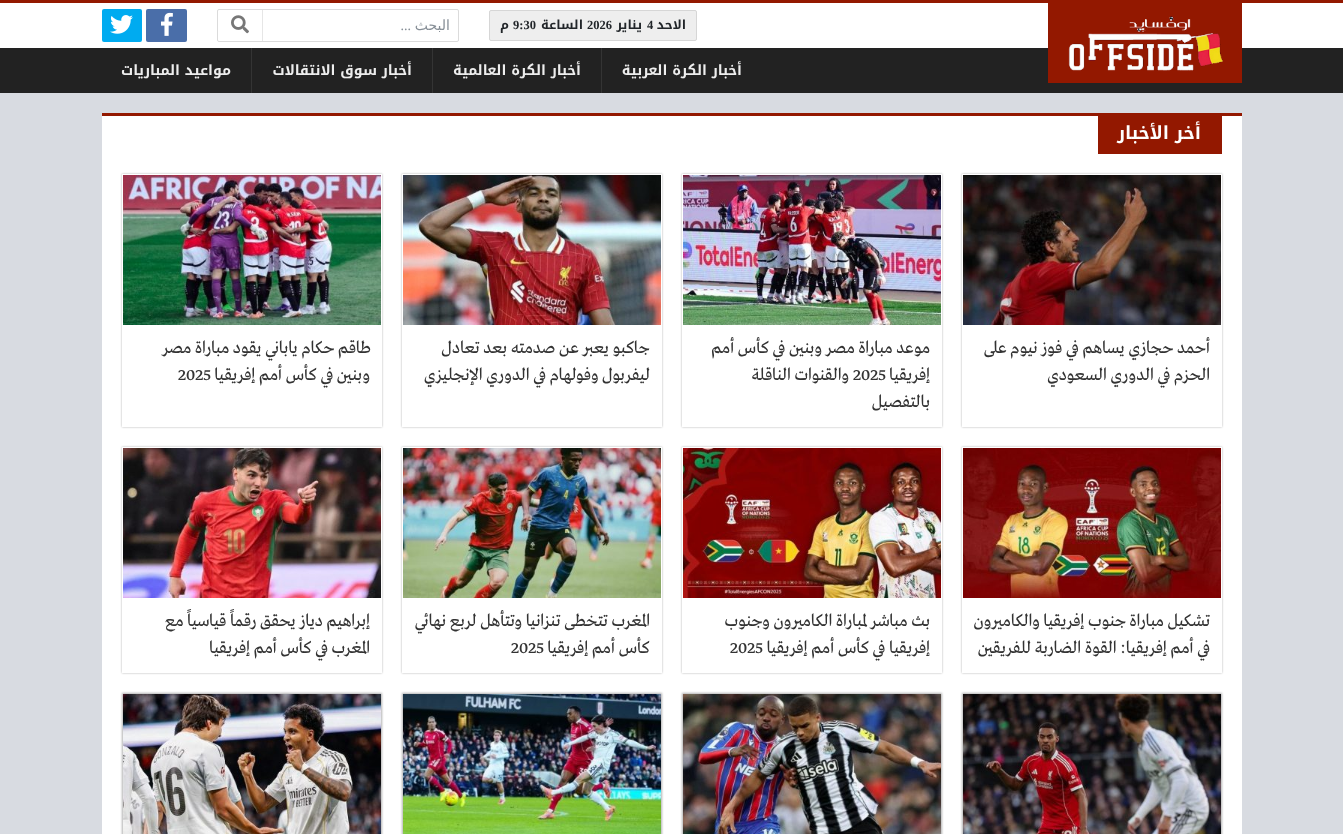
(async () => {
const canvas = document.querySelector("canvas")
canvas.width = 1343
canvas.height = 834
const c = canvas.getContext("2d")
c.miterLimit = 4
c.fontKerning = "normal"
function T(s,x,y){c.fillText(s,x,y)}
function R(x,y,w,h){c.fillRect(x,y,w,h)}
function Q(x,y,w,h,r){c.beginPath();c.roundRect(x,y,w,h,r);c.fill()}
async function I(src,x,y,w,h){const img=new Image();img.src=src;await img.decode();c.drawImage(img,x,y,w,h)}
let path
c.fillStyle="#d8dbe1"
R(0,0,1343,834)
c.fillStyle="#222"
R(0,48,1343,45)
c.fillStyle="#931800"
R(0,0,1343,3)
c.fillStyle="#fff"
R(0,3,1343,45)
c.fillStyle="#eee"
c.beginPath()
c.roundRect(489.5,10.5,207,30,1.5)
c.fill()
c.strokeStyle="#d6d6d6"
c.stroke()
c.direction="rtl"
c.font="bold 12.5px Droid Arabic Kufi"
c.fillStyle="#212529"
T("الاحد",686,29)
c.direction="ltr"
c.font="bold 12.5px Liberation Serif"
T("4",647,29)
c.direction="rtl"
c.font="bold 12.5px Droid Arabic Kufi"
T("يناير",642,29)
c.direction="ltr"
c.font="bold 12.5px Liberation Serif"
T("2026",587,29)
c.direction="rtl"
c.font="bold 12.5px Droid Arabic Kufi"
T("الساعة",583,29)
c.direction="ltr"
c.font="bold 12.5px Liberation Serif"
T("9:30",513,29)
c.direction="rtl"
c.font="bold 12.5px Droid Arabic Kufi"
T("م",509,29)
c.beginPath()
c.roundRect(217.5,9.5,241,32,1.5)
c.strokeStyle="#dbdbdb"
c.stroke()
c.font="14px DejaVu Sans"
c.fillStyle="#868e96"
T("البحث",450,30)
c.font="14px Liberation Serif"
T("...",411,30)
c.fillStyle="#e6e6e6"
R(262,10,1,31)
await I("1.png",231,15,18,19)
c.fillStyle="#4a6ea9"
Q(146,9,41,33,2)
await I("2.png",161,12,12,24)
c.fillStyle="#00abf0"
Q(102,9,40,33,2)
await I("3.png",110,15,23,19)
c.fillStyle="#931800"
R(1048,3,194,80)
await I("4.png",1068,16,155,55)
c.fillStyle="#343434"
R(601,48,1,45)
c.font="bold 14px Droid Arabic Kufi"
c.fillStyle="#eee"
T("أخبار الكرة العربية",742,75)
c.fillStyle="#343434"
R(432,48,1,45)
c.fillStyle="#eee"
T("أخبار الكرة العالمية",581,75)
c.fillStyle="#343434"
R(251,48,1,45)
c.fillStyle="#eee"
T("أخبار سوق الانتقالات",412,75)
T("مواعيد المباريات",231,75)
c.fillStyle="#fff"
R(102,116,1140,718)
c.fillStyle="#931800"
R(102,113,1140,3)
R(1098,116,124,38)
c.font="bold 18px Droid Arabic Kufi"
c.fillStyle="#fff"
T("أخر الأخبار",1201,139)
c.save()
path = new Path2D("M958 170h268v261h-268zm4 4h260v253h-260z")
c.clip(path,"evenodd")
c.fillStyle="#0000004d"
c.filter="blur(1px)"
c.beginPath()
c.rect(962,174,260,253)
c.fill()
c.filter="none"
c.restore()
await I("5.png",963,175,258,150)
c.font="18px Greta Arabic"
c.fillStyle="#333"
T("أحمد حجازي يساهم في فوز نيوم على",1210,353)
T("الحزم في الدوري السعودي",1210,380)
c.save()
path = new Path2D("M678 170h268v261h-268zm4 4h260v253h-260z")
c.clip(path,"evenodd")
c.fillStyle="#0000004d"
c.filter="blur(1px)"
c.beginPath()
c.rect(682,174,260,253)
c.fill()
c.filter="none"
c.restore()
await I("6.png",683,175,258,150)
T("موعد مباراة مصر وبنين في كأس أمم",930,353)
T("إفريقيا",930,380)
c.direction="ltr"
T("2025",853,380)
c.direction="rtl"
T("والقنوات الناقلة",849,380)
T("بالتفصيل",930,407)
c.save()
path = new Path2D("M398 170h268v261h-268zm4 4h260v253h-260z")
c.clip(path,"evenodd")
c.fillStyle="#0000004d"
c.filter="blur(1px)"
c.beginPath()
c.rect(402,174,260,253)
c.fill()
c.filter="none"
c.restore()
await I("7.png",403,175,258,150)
T("جاكبو يعبر عن صدمته بعد تعادل",650,353)
T("ليفربول وفولهام في الدوري الإنجليزي",650,380)
c.save()
path = new Path2D("M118 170h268v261h-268zm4 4h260v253h-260z")
c.clip(path,"evenodd")
c.fillStyle="#0000004d"
c.filter="blur(1px)"
c.beginPath()
c.rect(122,174,260,253)
c.fill()
c.filter="none"
c.restore()
await I("8.png",123,175,258,150)
T("طاقم حكام ياباني يقود مباراة مصر",371,353)
T("وبنين في كأس أمم إفريقيا",370,380)
c.direction="ltr"
T("2025",178,380)
c.save()
path = new Path2D("M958 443h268v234h-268zm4 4h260v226h-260z")
c.clip(path,"evenodd")
c.fillStyle="#0000004d"
c.filter="blur(1px)"
c.beginPath()
c.rect(962,447,260,226)
c.fill()
c.filter="none"
c.restore()
await I("9.png",963,448,258,150)
c.direction="rtl"
T("تشكيل مباراة جنوب إفريقيا والكاميرون",1210,626)
T("في أمم إفريقيا: القوة الضاربة للفريقين",1210,653)
c.save()
path = new Path2D("M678 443h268v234h-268zm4 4h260v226h-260z")
c.clip(path,"evenodd")
c.fillStyle="#0000004d"
c.filter="blur(1px)"
c.beginPath()
c.rect(682,447,260,226)
c.fill()
c.filter="none"
c.restore()
await I("10.png",683,448,258,150)
T("بث مباشر لمباراة الكاميرون وجنوب",930,626)
T("إفريقيا في كأس أمم إفريقيا",930,653)
c.direction="ltr"
T("2025",730,653)
c.save()
path = new Path2D("M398 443h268v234h-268zm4 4h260v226h-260z")
c.clip(path,"evenodd")
c.fillStyle="#0000004d"
c.filter="blur(1px)"
c.beginPath()
c.rect(402,447,260,226)
c.fill()
c.filter="none"
c.restore()
await I("11.png",403,448,258,150)
c.direction="rtl"
T("المغرب تتخطى تنزانيا وتتأهل لربع نهائي",650,626)
T("كأس أمم إفريقيا",650,653)
c.direction="ltr"
T("2025",511,653)
c.save()
path = new Path2D("M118 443h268v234h-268zm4 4h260v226h-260z")
c.clip(path,"evenodd")
c.fillStyle="#0000004d"
c.filter="blur(1px)"
c.beginPath()
c.rect(122,447,260,226)
c.fill()
c.filter="none"
c.restore()
await I("12.png",123,448,258,150)
c.direction="rtl"
T("إبراهيم دياز يحقق رقماً قياسياً مع",370,626)
T("المغرب في كأس أمم إفريقيا",370,653)
c.fillStyle="#0000004d"
c.filter="blur(1px)"
c.beginPath()
c.rect(962,693,260,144)
c.fill()
c.filter="none"
await I("13.png",963,694,258,140)
c.filter="blur(1px)"
c.beginPath()
c.rect(682,693,260,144)
c.fill()
c.filter="none"
await I("14.png",683,694,258,140)
c.filter="blur(1px)"
c.beginPath()
c.rect(402,693,260,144)
c.fill()
c.filter="none"
await I("15.png",403,694,258,140)
c.filter="blur(1px)"
c.beginPath()
c.rect(122,693,260,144)
c.fill()
c.filter="none"
await I("16.png",123,694,258,140)
})()
